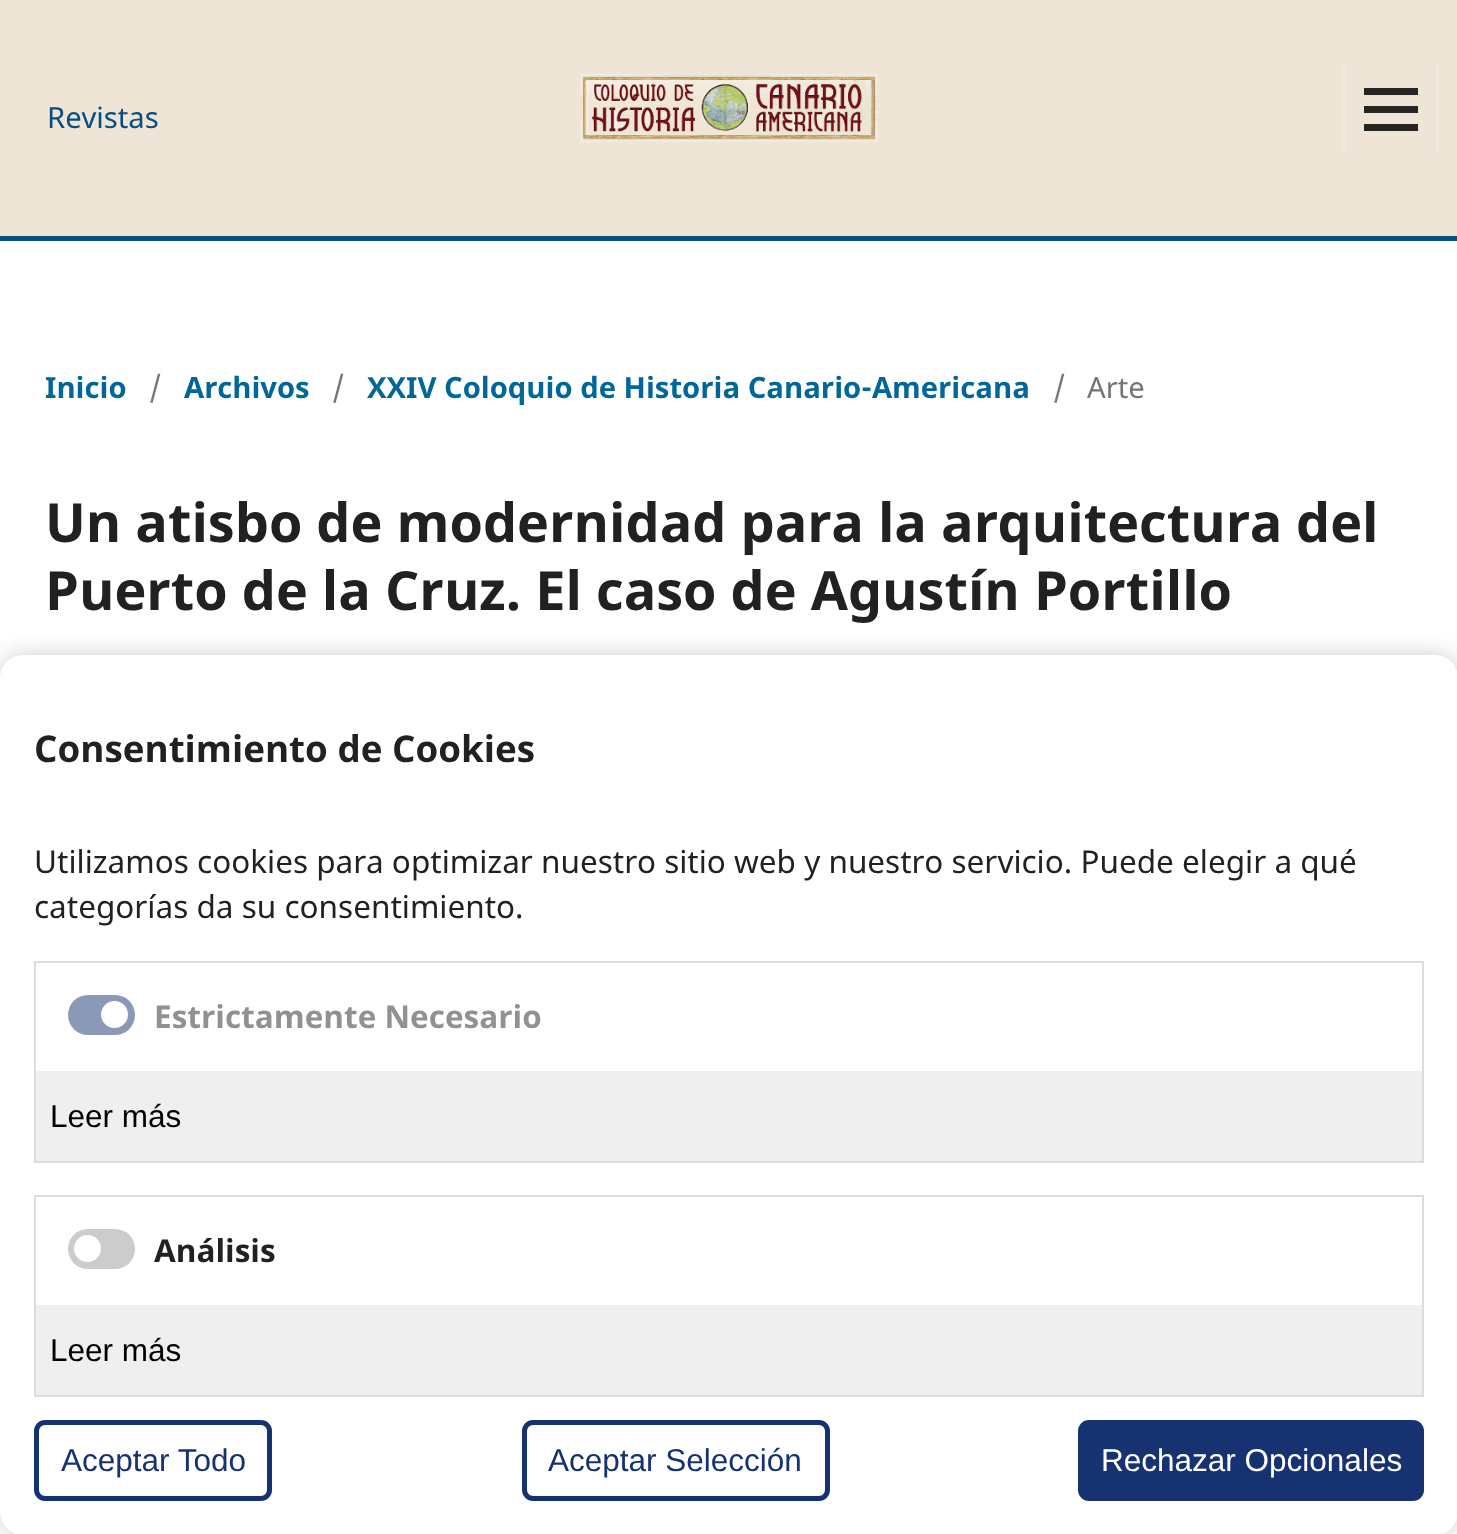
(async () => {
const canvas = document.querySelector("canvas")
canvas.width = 1457
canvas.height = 1534
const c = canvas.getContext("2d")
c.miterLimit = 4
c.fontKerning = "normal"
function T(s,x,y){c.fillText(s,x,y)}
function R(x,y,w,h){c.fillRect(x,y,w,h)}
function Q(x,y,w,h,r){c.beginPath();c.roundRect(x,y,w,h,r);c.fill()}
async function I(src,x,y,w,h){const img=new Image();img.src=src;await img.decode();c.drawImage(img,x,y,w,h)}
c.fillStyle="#fff"
R(0,0,1457,1534)
c.fillStyle="#eee5d6"
R(0,0,1457,236)
c.fillStyle="#074e80"
R(0,236,1457,5)
c.font="29.25px Noto Sans"
T("Revistas",47,128)
await I("1.png",580,74,298,68)
c.fillStyle="#f1eade"
R(1343,63,3,90)
R(1436,63,2,90)
c.fillStyle="#262522"
R(1364,124,54,7)
R(1364,88,54,7)
R(1364,106,54,7)
c.font="bold 29.25px Noto Sans"
c.fillStyle="#006798"
T("Inicio",45,398)
c.font="29.25px Noto Sans"
c.fillStyle="#757575"
T("/",149,398)
c.font="bold 29.25px Noto Sans"
c.fillStyle="#006798"
T("Archivos",184,398)
c.font="29.25px Noto Sans"
c.fillStyle="#757575"
T("/",332,398)
c.font="bold 29.25px Noto Sans"
c.fillStyle="#006798"
T("XXIV Coloquio de Historia Canario-Americana",367,398)
c.font="29.25px Noto Sans"
c.fillStyle="#757575"
T("/",1053,398)
T("Arte",1087,398)
c.font="bold 54px Noto Sans"
c.fillStyle="#212121"
T("Un atisbo de modernidad para la arquitectura",45,542)
T("del",1296,542)
T("Puerto de la Cruz. El caso de Agustín Portillo",45,610)
c.fillStyle="#00000033"
c.filter="blur(11px)"
c.beginPath()
c.roundRect(0,655,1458,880,23)
c.fill()
c.filter="none"
c.fillStyle="#fff"
Q(0,655,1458,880,23)
c.font="bold 36.8px Noto Sans"
c.fillStyle="#212121"
T("Consentimiento de Cookies",34,762)
c.font="31.5px Noto Sans"
T("Utilizamos cookies para optimizar nuestro sitio web y nuestro servicio. Puede elegir a qué",34,873)
T("categorías da su consentimiento.",34,918)
c.strokeStyle="#ddd"
c.lineWidth=2
c.strokeRect(35,962,1388,200)
c.fillStyle="#8b99b8"
Q(68,995,67,40,20)
c.fillStyle="#fff"
c.beginPath()
c.arc(114.5,1014.5,13.5,0,7)
c.fill()
c.font="bold 31.5px Noto Sans"
c.fillStyle="#919191"
T("Estrictamente Necesario",154,1028)
c.fillStyle="#efefef"
R(36,1071,1386,90)
c.font="31.5px Liberation Sans"
c.fillStyle="#000"
T("Leer más",50,1127)
c.strokeRect(35,1196,1388,200)
c.fillStyle="#ccc"
Q(68,1229,67,40,20)
c.fillStyle="#fff"
c.beginPath()
c.arc(87.5,1248.5,13.5,0,7)
c.fill()
c.font="bold 31.5px Noto Sans"
c.fillStyle="#212121"
T("Análisis",154,1262)
c.fillStyle="#efefef"
R(36,1305,1386,90)
c.font="31.5px Liberation Sans"
c.fillStyle="#000"
T("Leer más",50,1361)
c.beginPath()
c.roundRect(36.5,1422.5,233,76,8.5)
c.strokeStyle="#163271"
c.lineWidth=5
c.stroke()
c.fillStyle="#163271"
T("Aceptar Todo",61,1471)
c.beginPath()
c.roundRect(524.5,1422.5,303,76,8.5)
c.stroke()
T("Aceptar Selección",548,1471)
Q(1078,1420,346,81,11)
c.fillStyle="#fff"
T("Rechazar Opcionales",1101,1471)
})()
